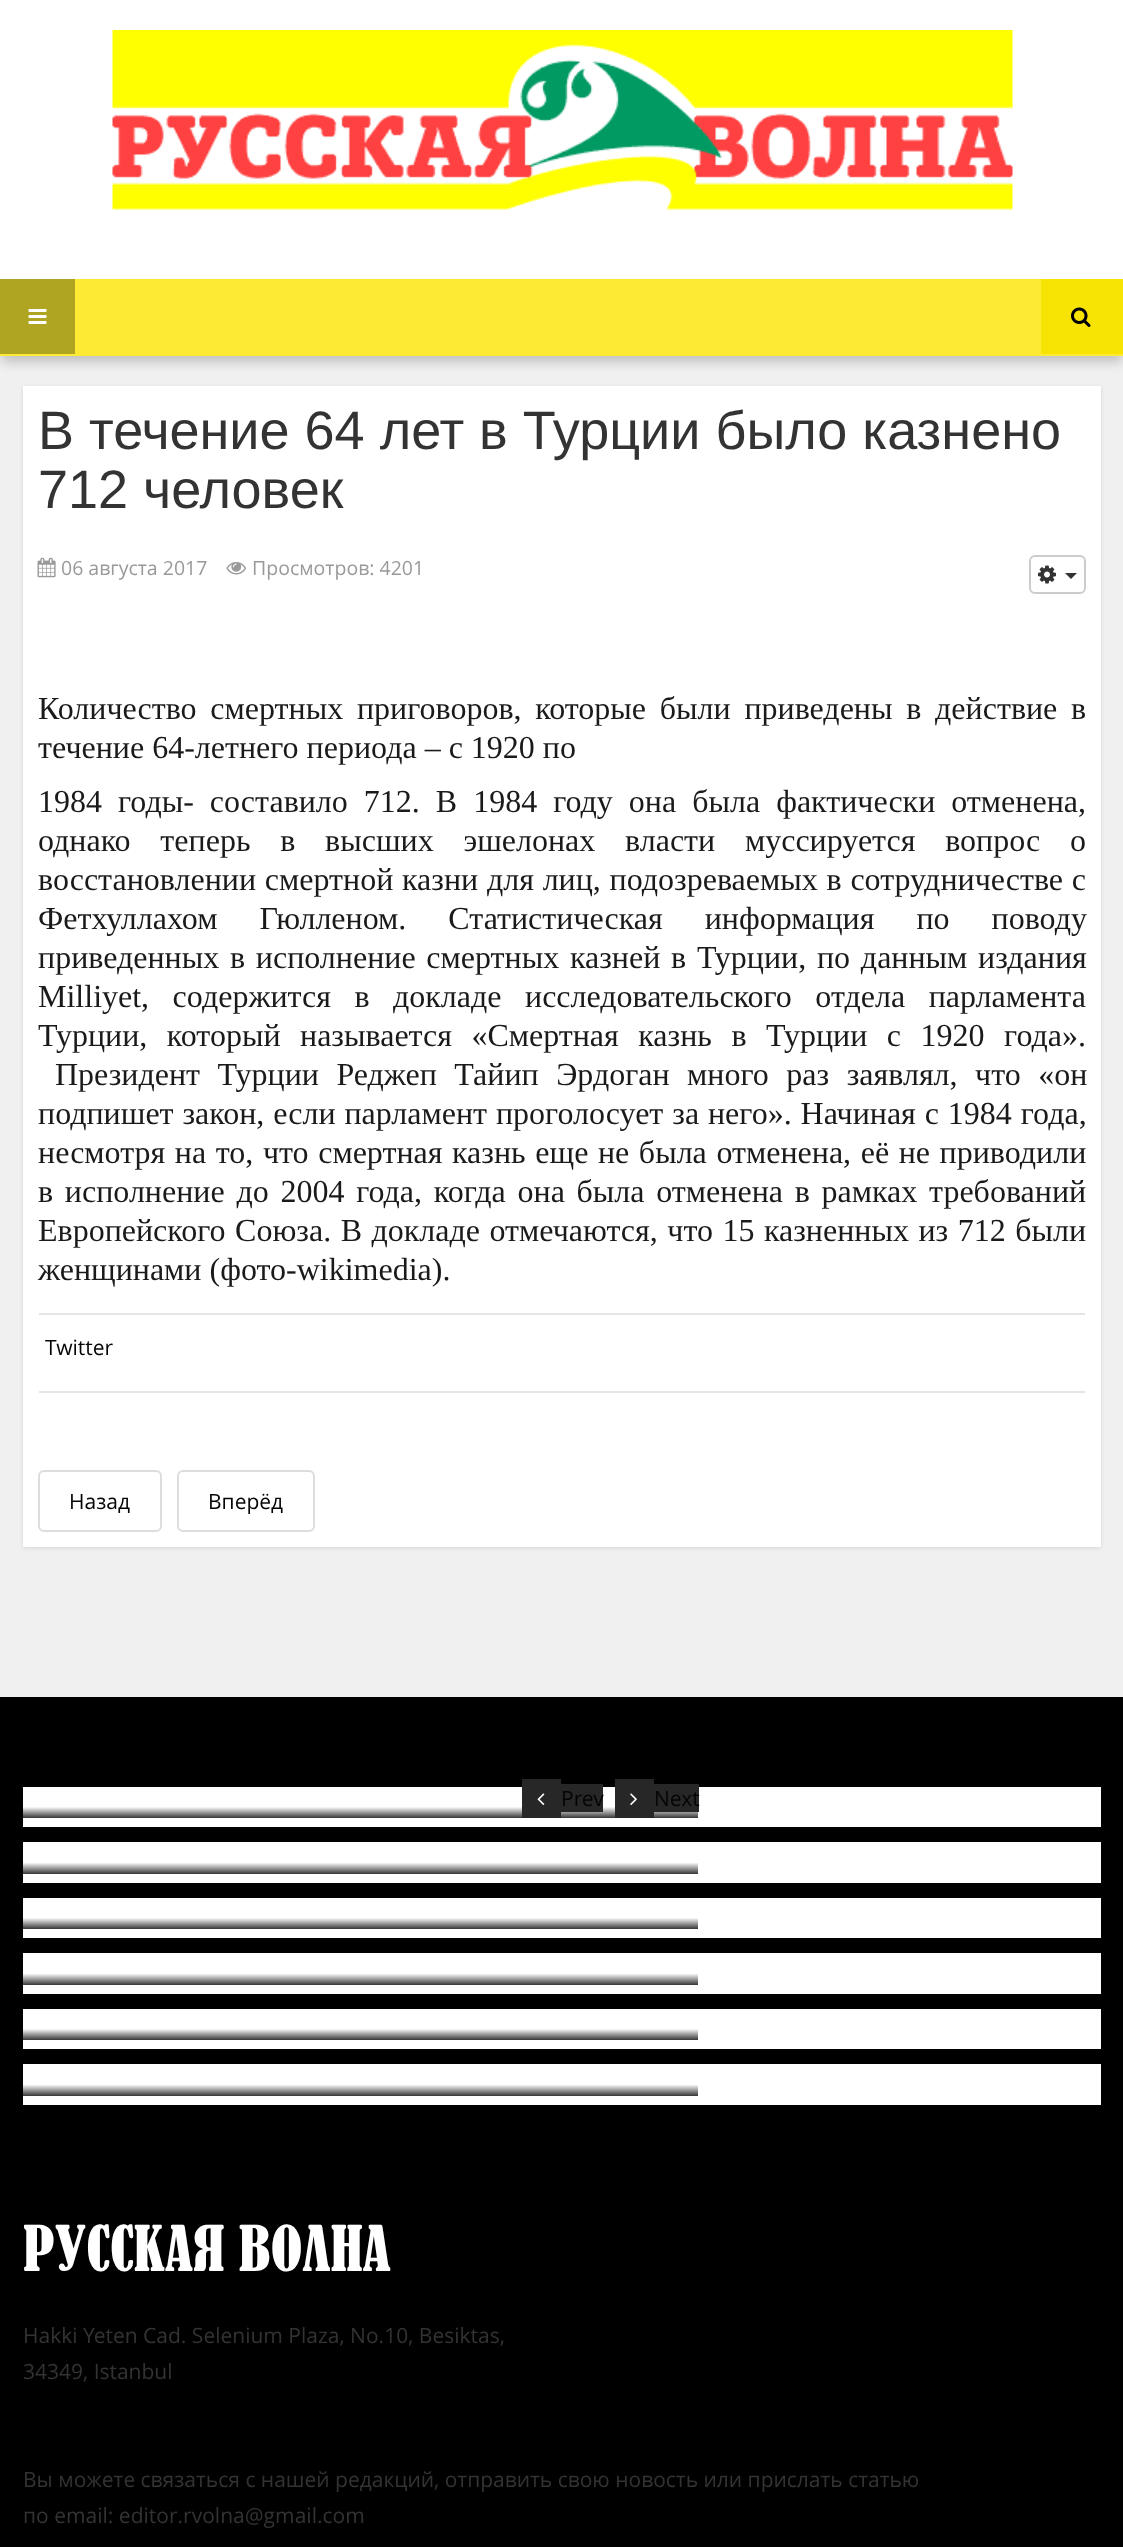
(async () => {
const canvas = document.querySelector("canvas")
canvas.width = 1123
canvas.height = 2547
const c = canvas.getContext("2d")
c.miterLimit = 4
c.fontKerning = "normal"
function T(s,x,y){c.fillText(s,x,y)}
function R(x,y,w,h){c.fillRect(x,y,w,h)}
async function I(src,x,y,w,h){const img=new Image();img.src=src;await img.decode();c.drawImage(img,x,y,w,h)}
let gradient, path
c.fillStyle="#f0f0f0"
R(0,0,1123,2547)
c.fillStyle="#fff"
R(0,0,1123,279)
await I("1.png",112,30,901,180)
c.fillStyle="#00000033"
c.filter="blur(6px)"
c.beginPath()
c.rect(2,288,1120,74)
c.fill()
c.filter="none"
c.fillStyle="#fceb32"
R(0,279,1123,77)
c.fillStyle="#b0a523"
R(0,279,75,75)
await I("2.png",28,309,19,15)
c.fillStyle="#f7e304"
R(1041,279,82,75)
await I("3.png",1071,307,20,20)
c.fillStyle="#0000001a"
c.filter="blur(2px)"
c.beginPath()
c.rect(23,387,1078,1161)
c.fill()
c.filter="none"
c.fillStyle="#fff"
R(23,386,1078,1161)
c.font="54px Liberation Sans"
c.fillStyle="#333"
T("В течение 64 лет в Турции было казнено",38,449)
T("712 человек",38,508)
await I("4.png",37,557,19,21)
c.font="19.5px Open Sans"
c.fillStyle="#999"
T("06 августа 2017",61,575)
await I("5.png",226,562,20,13)
T("Просмотров: 4201",252,575)
c.beginPath()
c.roundRect(1030,556,55,37,5)
c.strokeStyle="#ccc"
c.lineWidth=2
c.stroke()
await I("6.png",1038,565,18,19)
c.fillStyle="#333"
path = new Path2D("M1065 573h12l-6 6z")
c.fill(path)
c.wordSpacing="5.75px"
c.font="32px Liberation Serif"
c.fillStyle="#1a1a1a"
T("Количество смертных приговоров, которые были приведены в действие в",38,719)
c.wordSpacing="0px"
T("течение 64-летнего периода – с 1920 по",38,758)
c.wordSpacing="8px"
T("1984 годы- составило 712. В 1984 году она была фактически отменена,",38,812)
c.wordSpacing="21.75px"
T("однако теперь в высших эшелонах власти муссируется вопрос о",38,851)
c.wordSpacing="0.75px"
T("восстановлении смертной казни для лиц, подозреваемых в сотрудничестве с",38,890)
c.wordSpacing="34px"
T("Фетхуллахом Гюлленом. Статистическая информация по поводу",38,929)
c.wordSpacing="2.75px"
T("приведенных в исполнение смертных казней в Турции, по данным издания",38,968)
c.wordSpacing="15.5px"
T("Milliyet, содержится в докладе исследовательского отдела парламента",38,1007)
c.wordSpacing="11.5px"
T("Турции, который называется «Смертная казнь в Турции с 1920 года».",38,1046)
c.wordSpacing="9.5px"
T("Президент Турции Реджеп Тайип Эрдоган много раз заявлял, что «он",55,1085)
c.wordSpacing="0.9px"
T("подпишет закон, если парламент проголосует за него». Начиная с 1984 года,",38,1124)
c.wordSpacing="1.6px"
T("несмотря на то, что смертная казнь еще не была отменена, её не приводили",38,1163)
c.wordSpacing="3.75px"
T("в исполнение до 2004 года, когда она была отменена в рамках требований",38,1202)
c.wordSpacing="1.5px"
T("Европейского Союза. В докладе отмечаются, что 15 казненных из 712 были",38,1241)
c.wordSpacing="0px"
T("женщинами (фото-wikimedia).",38,1280)
c.fillStyle="#e5e5e5"
R(39,1313,1046,2)
R(39,1391,1046,2)
c.font="21px Open Sans"
c.fillStyle="#050505"
T("Twitter",45,1355)
c.beginPath()
c.roundRect(39,1471,122,60,5)
c.strokeStyle="#ddd"
c.stroke()
T("Назад",69,1509)
c.beginPath()
c.roundRect(178,1471,136,60,5)
c.stroke()
T("Вперёд",208,1509)
c.fillStyle="#000"
R(0,1697,1123,850)
c.fillStyle="#fff"
R(23,1787,1078,40)
gradient = c.createLinearGradient(360,1790,360,1818)
gradient.addColorStop(.6,"#fff")
gradient.addColorStop(1,"#363636")
c.fillStyle = gradient
R(23,1807,675,11)
c.fillStyle="#fff"
R(23,1842,1078,41)
gradient = c.createLinearGradient(360,1845,360,1874)
gradient.addColorStop(.6,"#fff")
gradient.addColorStop(1,"#363636")
c.fillStyle = gradient
R(23,1863,675,11)
c.fillStyle="#fff"
R(23,1898,1078,40)
gradient = c.createLinearGradient(360,1901,360,1929)
gradient.addColorStop(.6,"#fff")
gradient.addColorStop(1,"#363636")
c.fillStyle = gradient
R(23,1918,675,11)
c.fillStyle="#fff"
R(23,1953,1078,41)
gradient = c.createLinearGradient(360,1956,360,1985)
gradient.addColorStop(.6,"#fff")
gradient.addColorStop(1,"#363636")
c.fillStyle = gradient
R(23,1974,675,11)
c.fillStyle="#fff"
R(23,2009,1078,40)
gradient = c.createLinearGradient(360,2012,360,2040)
gradient.addColorStop(.6,"#fff")
gradient.addColorStop(1,"#363636")
c.fillStyle = gradient
R(23,2029,675,11)
c.fillStyle="#fff"
R(23,2064,1078,41)
gradient = c.createLinearGradient(360,2067,360,2096)
gradient.addColorStop(.6,"#fff")
gradient.addColorStop(1,"#363636")
c.fillStyle = gradient
R(23,2085,675,11)
c.fillStyle="#272727"
R(522,1779,39,39)
R(561,1784,42,28)
await I("7.png",537,1793,8,12)
c.fillStyle="#050505"
T("Prev",561,1806)
c.fillStyle="#272727"
R(615,1779,39,39)
R(654,1784,45,28)
await I("8.png",630,1793,7,12)
c.fillStyle="#050505"
T("Next",654,1806)
c.font="58.5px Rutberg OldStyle"
c.fillStyle="#fff"
T("РУССКАЯ ВОЛНА",23,2271)
c.font="21px Open Sans"
c.fillStyle="#333"
T("Hakki Yeten Cad. Selenium Plaza, No.10, Besiktas,",23,2343)
T("34349, Istanbul",23,2379)
T("Вы можете связаться с нашей редакций, отправить свою новость или прислать статью",23,2487)
T("по email: editor.rvolna@gmail.com",23,2523)
})()
